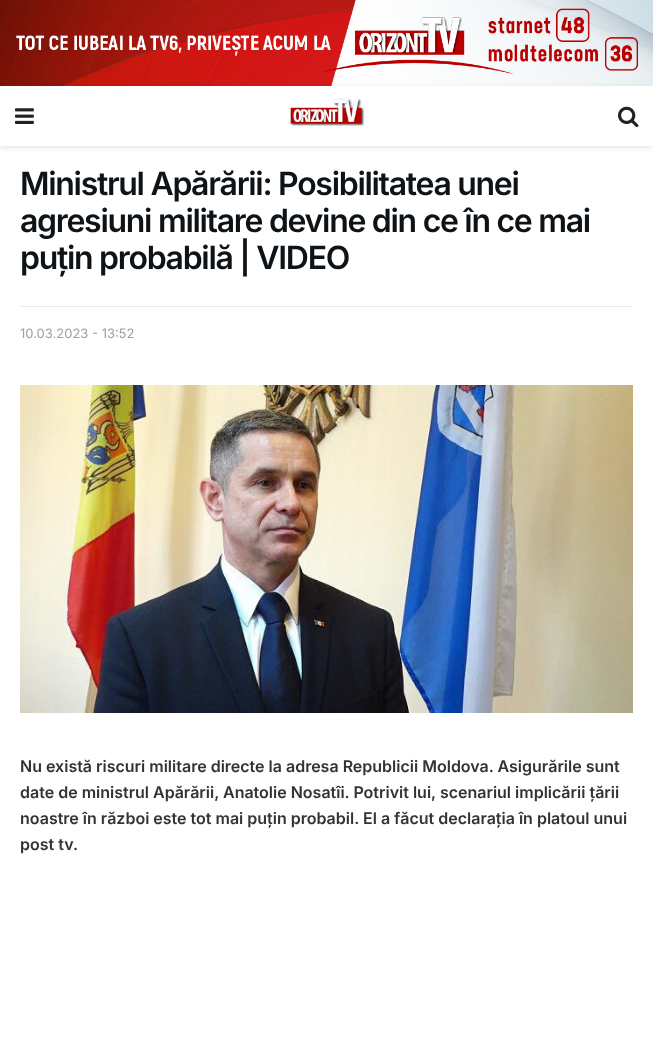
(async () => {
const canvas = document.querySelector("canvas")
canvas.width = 653
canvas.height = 1062
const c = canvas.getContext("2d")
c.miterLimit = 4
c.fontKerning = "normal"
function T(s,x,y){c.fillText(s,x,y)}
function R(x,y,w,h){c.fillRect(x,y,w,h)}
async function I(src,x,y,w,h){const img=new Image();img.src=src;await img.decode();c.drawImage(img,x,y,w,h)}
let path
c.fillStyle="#fff"
R(0,0,653,1062)
await I("1.png",0,0,653,86)
c.save()
path = new Path2D("M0 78h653v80h-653zm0 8h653v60h-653z")
c.clip(path,"evenodd")
c.fillStyle="#0000001a"
c.filter="blur(3px)"
c.beginPath()
c.rect(0,88,653,60)
c.fill()
c.filter="none"
c.restore()
await I("2.png",15,108,19,16)
await I("3.png",290,98,75,28)
await I("4.png",618,106,21,22)
c.letterSpacing="-1.3px"
c.font="600 32px Inter"
c.fillStyle="#0d1317"
T("Ministrul Apărării: Posibilitatea unei",20,195)
T("agresiuni militare devine din ce în ce mai",20,232)
T("puțin probabilă | VIDEO",20,269)
c.fillStyle="#eaeaea"
R(20,306,613,1)
c.letterSpacing="0px"
c.font="13px Inter"
c.fillStyle="#a0a0a0"
T("10.03.2023 - 13:52",20,338)
await I("5.png",20,385,613,328)
c.font="600 16px Inter"
c.fillStyle="#333"
T("Nu există riscuri militare directe la adresa Republicii Moldova. Asigurările sunt",20,772)
T("date de ministrul Apărării, Anatolie Nosatîi. Potrivit lui, scenariul implicării țării",20,798)
T("noastre în război este tot mai puțin probabil. El a făcut declarația în platoul unui",20,824)
T("post tv.",20,850)
})()
